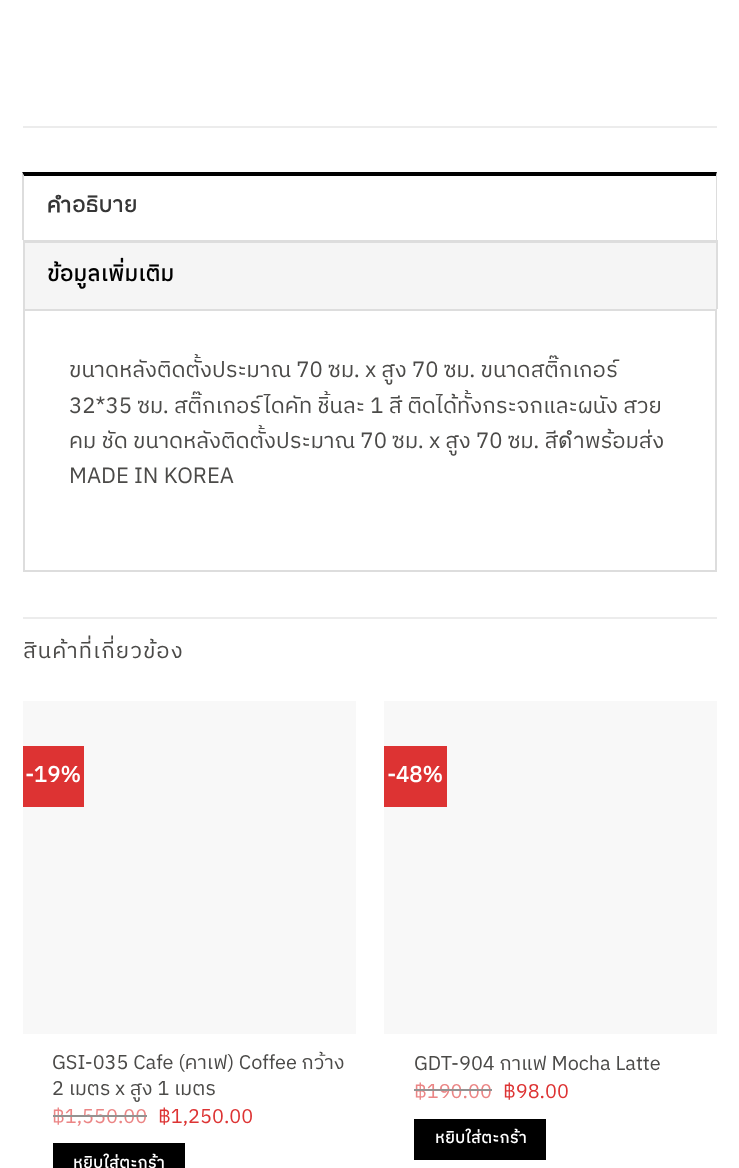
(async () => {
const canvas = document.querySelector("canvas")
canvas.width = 739
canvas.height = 1168
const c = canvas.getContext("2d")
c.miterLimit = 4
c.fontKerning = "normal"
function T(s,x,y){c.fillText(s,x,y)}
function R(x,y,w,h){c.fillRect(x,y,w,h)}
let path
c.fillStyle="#fff"
R(0,0,739,1168)
c.fillStyle="#ececec"
R(23,126,694,2)
c.fillStyle="#000"
path = new Path2D("M22 172h695l-1 4h-692z")
c.fill(path)
c.fillStyle="#ddd"
path = new Path2D("M717 172v68h-1v-64z")
c.fill(path)
path = new Path2D("M22 240v-68l2 4v64z")
c.fill(path)
c.letterSpacing="0.5px"
c.font="bold 22.1px IBM Plex Sans Thai"
c.fillStyle="#363636"
T("คำอธิบาย",47,212)
c.fillStyle="#f5f5f5"
R(25,243,691,66)
c.fillStyle="#ddd"
R(23,240,694,3)
R(716,240,2,69)
R(23,240,2,69)
c.fillStyle="#000"
T("ข้อมูลเพิ่มเติม",47,281)
c.strokeStyle="#ddd"
c.lineWidth=2
c.strokeRect(24,310,692,261)
c.letterSpacing="0px"
c.font="22.1px IBM Plex Sans Thai"
c.fillStyle="#4b4a48"
T("ขนาดหลังติดตั้งประมาณ 70 ซม. x สูง 70 ซม. ขนาดสติ๊กเกอร์",69,377)
T("32*35 ซม. สติ๊กเกอร์ไดคัท ชิ้นละ 1 สี ติดได้ทั้งกระจกและผนัง สวย",69,413)
T("คม ชัด ขนาดหลังติดตั้งประมาณ 70 ซม. x สูง 70 ซม. สีดำพร้อมส่ง",69,448)
T("MADE IN KOREA",69,483)
c.fillStyle="#ececec"
R(23,617,694,2)
c.letterSpacing="1.1px"
c.fillStyle="#4b4a48"
T("สินค้าที่เกี่ยวข้อง",23,658)
c.fillStyle="#f8f8f8"
R(23,701,333,333)
c.fillStyle="#d33"
R(23,746,61,61)
c.letterSpacing="0px"
c.font="bold 22.1px 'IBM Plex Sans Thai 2'"
c.fillStyle="#fff"
T("-19%",25,782)
c.font="19.9px IBM Plex Sans Thai"
c.fillStyle="#4b4a48"
T("GSI-035 Cafe (คาเฟ) Coffee กว้าง",52,1069)
T("2 เมตร x สูง 1 เมตร",52,1095)
c.fillStyle="#eb8585"
T("฿1,550.00",52,1123)
c.fillStyle="#939291"
R(53,1115,94,2)
c.fillStyle="#d33"
T("฿1,250.00",158,1123)
c.fillStyle="#000"
R(53,1143,132,25)
c.letterSpacing="0.5px"
c.font="bold 16px 'IBM Plex Sans Thai 2'"
c.fillStyle="#fff"
T("หยิบใส่ตะกร้า",73,1168)
c.fillStyle="#f8f8f8"
R(384,701,333,333)
c.fillStyle="#d33"
R(384,746,63,61)
c.letterSpacing="0px"
c.font="bold 22.1px 'IBM Plex Sans Thai 2'"
c.fillStyle="#fff"
T("-48%",387,782)
c.font="19.9px IBM Plex Sans Thai"
c.fillStyle="#4b4a48"
T("GDT-904 กาแฟ Mocha Latte",414,1070)
c.fillStyle="#eb8585"
T("฿190.00",414,1098)
c.fillStyle="#939291"
R(414,1089,78,2)
c.fillStyle="#d33"
T("฿98.00",503,1098)
c.fillStyle="#000"
R(414,1119,132,41)
c.letterSpacing="0.5px"
c.font="bold 16px 'IBM Plex Sans Thai 2'"
c.fillStyle="#fff"
T("หยิบใส่ตะกร้า",435,1143)
})()
